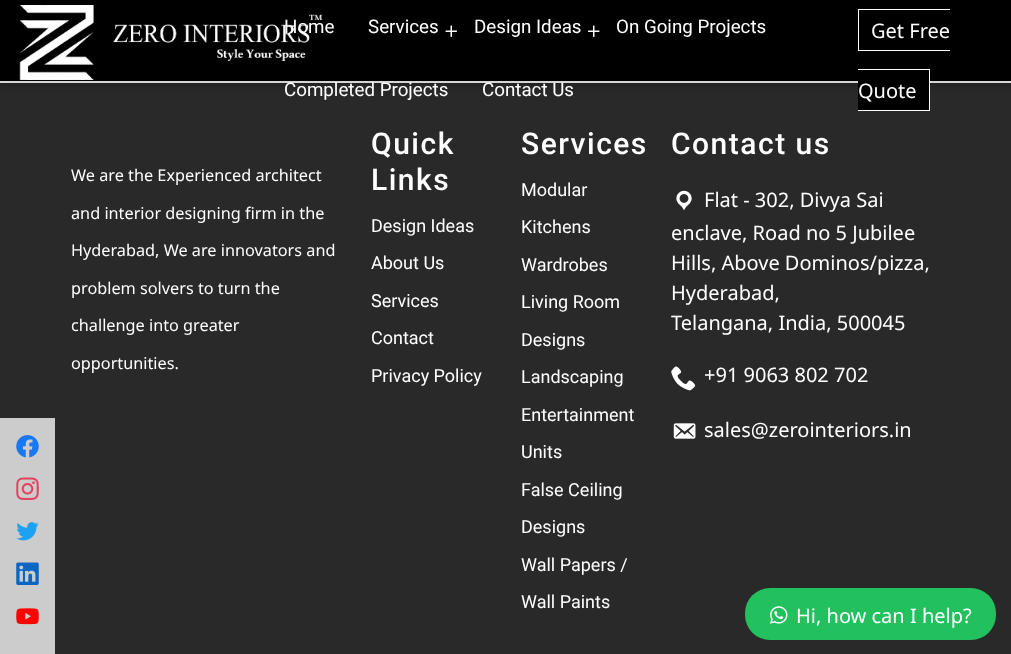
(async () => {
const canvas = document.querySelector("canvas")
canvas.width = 1011
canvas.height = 654
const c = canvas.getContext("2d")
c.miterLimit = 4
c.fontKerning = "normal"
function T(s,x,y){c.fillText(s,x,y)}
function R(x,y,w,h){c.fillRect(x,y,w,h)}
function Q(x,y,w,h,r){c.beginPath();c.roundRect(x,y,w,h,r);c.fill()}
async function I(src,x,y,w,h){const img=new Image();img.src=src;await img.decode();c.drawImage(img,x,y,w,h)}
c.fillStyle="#fff"
R(0,0,1011,654)
c.fillStyle="#292929"
R(0,83,1011,571)
c.fillStyle="#00000033"
c.filter="blur(3px)"
c.beginPath()
c.rect(-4,-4,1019,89)
c.fill()
c.filter="none"
c.fillStyle="#000"
R(0,0,1011,81)
await I("1.png",19,5,304,75)
c.font="18.75px Roboto"
c.fillStyle="#fff"
T("Home",284,33)
T("Services",368,33)
await I("2.png",445,25,12,12)
T("Design Ideas",474,33)
await I("3.png",588,25,12,12)
T("On Going Projects",616,33)
T("Completed Projects",284,96)
T("Contact Us",482,96)
c.font="20px Noto Sans"
T("Get Free",871,38)
R(858,9,92,1)
R(858,50,92,1)
R(858,9,1,42)
c.fillStyle="#000"
R(858,81,71,29)
c.fillStyle="#fff"
T("Quote",858,98)
R(858,69,72,1)
R(929,69,1,42)
R(858,110,72,1)
c.fillStyle="#ccc"
R(0,418,55,236)
await I("4.png",16,435,23,23)
await I("5.png",16,477,23,23)
await I("6.png",16,522,23,19)
await I("7.png",16,562,23,23)
await I("8.png",16,608,23,17)
c.font="16.25px Noto Sans"
c.fillStyle="#fff"
T("We are the Experienced architect",71,181)
T("and interior designing firm in the",71,219)
T("Hyderabad, We are innovators and",71,256)
T("problem solvers to turn the",71,294)
T("challenge into greater",71,331)
T("opportunities.",71,369)
c.letterSpacing="1.5px"
c.font="500 30px Roboto"
T("Quick",371,154)
T("Links",371,190)
c.letterSpacing="0px"
c.font="18px Roboto"
T("Design Ideas",371,232)
T("About Us",371,269)
T("Services",371,307)
T("Contact",371,344)
T("Privacy Policy",371,382)
c.letterSpacing="1.5px"
c.font="500 30px Roboto"
T("Services",521,154)
c.letterSpacing="0px"
c.font="18px Roboto"
T("Modular",521,196)
T("Kitchens",521,233)
T("Wardrobes",521,271)
T("Living Room",521,308)
T("Designs",521,346)
T("Landscaping",521,383)
T("Entertainment",521,421)
T("Units",521,458)
T("False Ceiling",521,496)
T("Designs",521,533)
T("Wall Papers /",521,571)
T("Wall Paints",521,608)
c.letterSpacing="1.5px"
c.font="500 30px Roboto"
T("Contact us",671,154)
await I("9.png",676,190,16,21)
c.letterSpacing="0px"
c.font="20px Noto Sans"
T("Flat - 302, Divya Sai",704,207)
T("enclave, Road no 5 Jubilee",671,240)
T("Hills, Above Dominos/pizza,",671,270)
T("Hyderabad,",671,300)
T("Telangana, India, 500045",671,330)
await I("10.png",671,366,25,25)
T("+91 9063 802 702",704,382)
await I("11.png",673,423,23,16)
T("sales@zerointeriors.in",704,437)
c.fillStyle="#22c15e"
Q(745,588,251,52,25)
await I("12.png",770,606,18,18)
c.fillStyle="#fff"
T("Hi, how can I help?",796,623)
})()
